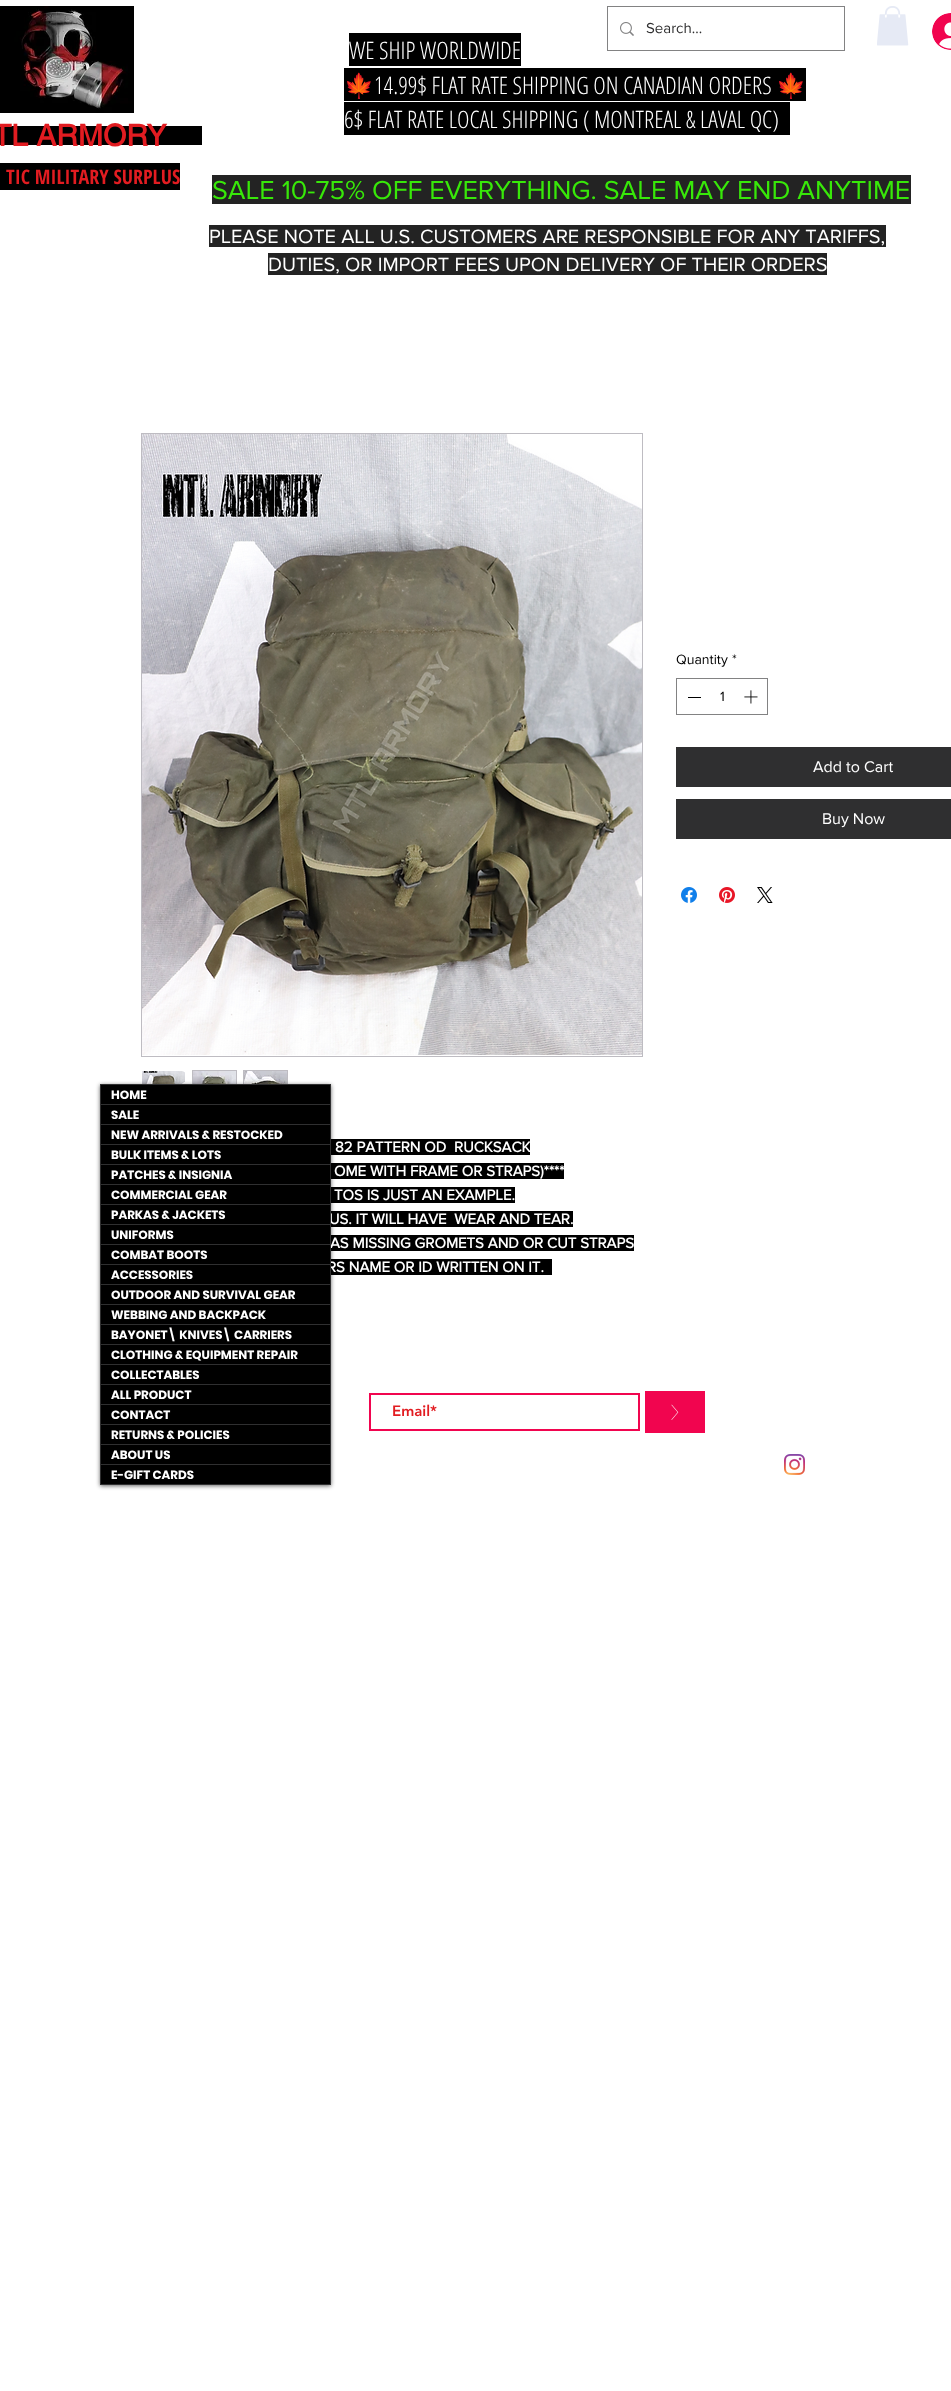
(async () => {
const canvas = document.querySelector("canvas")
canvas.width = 951
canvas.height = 2391
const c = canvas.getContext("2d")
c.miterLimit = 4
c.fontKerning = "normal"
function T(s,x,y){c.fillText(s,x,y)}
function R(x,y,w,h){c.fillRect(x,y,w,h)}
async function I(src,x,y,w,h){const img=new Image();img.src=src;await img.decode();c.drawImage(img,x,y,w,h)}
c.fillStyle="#fff"
R(0,0,951,2391)
await I("1.png",0,6,134,107)
c.strokeStyle="#828283"
c.strokeRect(607.5,6.5,237,44)
await I("2.png",620,22,14,14)
c.font="15px 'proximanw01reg'"
c.fillStyle="#2f2f30"
T("Search...",646,33)
await I("3.png",877,6,32,40)
await I("4.png",932,13,19,37)
c.fillStyle="#000"
R(349,33,172,33)
c.font="300 24px Open Sans Condensed"
c.fillStyle="#fff"
T("WE SHIP WORLDWIDE",349,59)
c.fillStyle="#000"
R(344,68,462,33)
c.font="24px Noto Color Emoji"
c.fillStyle="#fff"
T("🍁",344,94)
c.font="300 24px Open Sans Condensed"
T("14.99$ FLAT RATE SHIPPING ON CANADIAN ORDERS",374,94)
c.font="24px Noto Color Emoji"
T("🍁",776,94)
c.fillStyle="#000"
R(0,126,202,19)
c.font="bold 30px helvetica"
c.fillStyle="#e21c21"
T("TL ARMORY",-7,146)
c.fillStyle="#000"
R(344,102,446,33)
c.font="300 24px Open Sans Condensed"
c.fillStyle="#fff"
T("6$ FLAT RATE LOCAL SHIPPING ( MONTREAL & LAVAL QC)",344,128)
c.fillStyle="#000"
R(0,163,180,27)
c.font="bold 20px Open Sans Condensed"
c.fillStyle="#e21c21"
T("TIC MILITARY SURPLUS",6,184)
c.fillStyle="#232323"
R(212,175,699,29)
c.font="27px 'proximanw01reg'"
c.fillStyle="#38e809"
T("SALE 10-75% OFF EVERYTHING. SALE MAY END ANYTIME",212,199)
c.fillStyle="#232323"
R(209,225,677,22)
c.font="20px 'proximanw01reg'"
c.fillStyle="#fff"
T("PLEASE NOTE ALL U.S. CUSTOMERS ARE RESPONSIBLE FOR ANY TARIFFS,",209,243)
c.fillStyle="#232323"
R(268,253,559,22)
c.fillStyle="#fff"
T("DUTIES, OR IMPORT FEES UPON DELIVERY OF THEIR ORDERS",268,271)
await I("10.png",142,1071,43,13)
c.fillStyle="#bebcc2"
R(192,1070,45,14)
await I("11.png",193,1071,43,13)
R(243,1070,45,14)
await I("12.png",244,1071,43,13)
c.fillStyle="#000"
R(331,1139,199,16)
R(331,1163,233,16)
R(331,1187,184,16)
R(331,1211,242,16)
R(331,1235,303,16)
R(331,1259,221,16)
c.fillStyle="#00000099"
c.filter="blur(2px)"
c.beginPath()
c.rect(100,1085,231,401)
c.fill()
c.filter="none"
c.font="bold 15px 'proximanw01reg'"
c.fillStyle="#fff"
T("US. IT WILL HAVE  WEAR AND TEAR.",329,1224)
T("AS MISSING GROMETS AND OR CUT STRAPS",330,1248)
T("RS NAME OR ID WRITTEN ON IT.",327,1272)
c.strokeStyle="#2f2f30"
c.strokeRect(100.5,1084.5,230,400)
c.fillStyle="#2f2f30"
R(101,1104,229,1)
c.fillStyle="#000"
R(101,1085,229,19)
c.font="bold 12px Poppins"
c.fillStyle="#fff"
T("HOME",111,1099)
c.fillStyle="#2f2f30"
R(101,1124,229,1)
c.fillStyle="#000"
R(101,1105,229,19)
c.fillStyle="#fff"
T("SALE",111,1119)
c.fillStyle="#2f2f30"
R(101,1144,229,1)
c.fillStyle="#000"
R(101,1125,229,19)
c.fillStyle="#fff"
T("NEW ARRIVALS & RESTOCKED",111,1139)
c.fillStyle="#2f2f30"
R(101,1164,229,1)
c.fillStyle="#000"
R(101,1145,229,19)
c.fillStyle="#fff"
T("BULK ITEMS & LOTS",111,1159)
c.fillStyle="#2f2f30"
R(101,1184,229,1)
c.fillStyle="#000"
R(101,1165,229,19)
c.fillStyle="#fff"
T("PATCHES & INSIGNIA",111,1179)
c.fillStyle="#2f2f30"
R(101,1204,229,1)
c.fillStyle="#000"
R(101,1185,229,19)
c.fillStyle="#fff"
T("COMMERCIAL GEAR",111,1199)
c.fillStyle="#2f2f30"
R(101,1224,229,1)
c.fillStyle="#000"
R(101,1205,229,19)
c.fillStyle="#fff"
T("PARKAS & JACKETS",111,1219)
c.fillStyle="#2f2f30"
R(101,1244,229,1)
c.fillStyle="#000"
R(101,1225,229,19)
c.fillStyle="#fff"
T("UNIFORMS",111,1239)
c.fillStyle="#2f2f30"
R(101,1264,229,1)
c.fillStyle="#000"
R(101,1245,229,19)
c.fillStyle="#fff"
T("COMBAT BOOTS",111,1259)
c.fillStyle="#2f2f30"
R(101,1284,229,1)
c.fillStyle="#000"
R(101,1265,229,19)
c.fillStyle="#fff"
T("ACCESSORIES",111,1279)
c.fillStyle="#2f2f30"
R(101,1304,229,1)
c.fillStyle="#000"
R(101,1285,229,19)
c.fillStyle="#fff"
T("OUTDOOR AND SURVIVAL GEAR",111,1299)
c.fillStyle="#2f2f30"
R(101,1324,229,1)
c.fillStyle="#000"
R(101,1305,229,19)
c.fillStyle="#fff"
T("WEBBING AND BACKPACK",111,1319)
c.fillStyle="#2f2f30"
R(101,1344,229,1)
c.fillStyle="#000"
R(101,1325,229,19)
c.fillStyle="#fff"
T("BAYONET\\ KNIVES\\ CARRIERS",111,1339)
c.fillStyle="#2f2f30"
R(101,1364,229,1)
c.fillStyle="#000"
R(101,1345,229,19)
c.fillStyle="#fff"
T("CLOTHING & EQUIPMENT REPAIR",111,1359)
c.fillStyle="#2f2f30"
R(101,1384,229,1)
c.fillStyle="#000"
R(101,1365,229,19)
c.fillStyle="#fff"
T("COLLECTABLES",111,1379)
c.fillStyle="#2f2f30"
R(101,1404,229,1)
c.fillStyle="#000"
R(101,1385,229,19)
c.fillStyle="#fff"
T("ALL PRODUCT",111,1399)
c.fillStyle="#2f2f30"
R(101,1424,229,1)
c.fillStyle="#000"
R(101,1405,229,19)
c.fillStyle="#fff"
T("CONTACT",111,1419)
c.fillStyle="#2f2f30"
R(101,1444,229,1)
c.fillStyle="#000"
R(101,1425,229,19)
c.fillStyle="#fff"
T("RETURNS & POLICIES",111,1439)
c.fillStyle="#2f2f30"
R(101,1464,229,1)
c.fillStyle="#000"
R(101,1445,229,19)
c.fillStyle="#fff"
T("ABOUT US",111,1459)
c.fillStyle="#000"
R(101,1465,229,19)
c.fillStyle="#fff"
T("E-GIFT CARDS",111,1479)
c.font="14px 'proximanw01reg'"
c.fillStyle="#000"
T("Quantity",676,664)
T("*",732,664)
c.strokeStyle="#828283"
c.strokeRect(676.5,678.5,91,36)
R(688,697,13,1)
T("1",720,701)
await I("5.png",744,690,14,14)
c.fillStyle="#2f2f30"
R(676,747,275,40)
c.font="16px 'proximanw01reg'"
c.fillStyle="#fff"
T("Add to Cart",813,772)
c.fillStyle="#2f2f30"
R(676,799,275,40)
c.fillStyle="#fff"
T("Buy Now",822,824)
await I("6.png",681,887,16,16)
await I("7.png",719,887,16,16)
await I("8.png",757,887,16,16)
c.strokeStyle="#bebcc2"
c.strokeRect(141.5,433.5,501,623)
await I("9.png",142,434,500,621)
c.font="bold 15px 'proximanw01reg'"
T("82 PATTERN OD  RUCKSACK",335,1152)
T("OME WITH FRAME OR STRAPS)****",334,1176)
T("TOS IS JUST AN EXAMPLE.",334,1200)
c.strokeStyle="#f1054f"
c.lineWidth=2
c.strokeRect(370,1394,269,36)
c.font="900 15px 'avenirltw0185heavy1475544'"
c.fillStyle="#e21c21"
T("Email*",392,1416)
c.fillStyle="#f1054f"
R(645,1391,60,42)
await I("13.png",671,1404,8,16)
await I("14.png",784,1454,21,21)
})()
